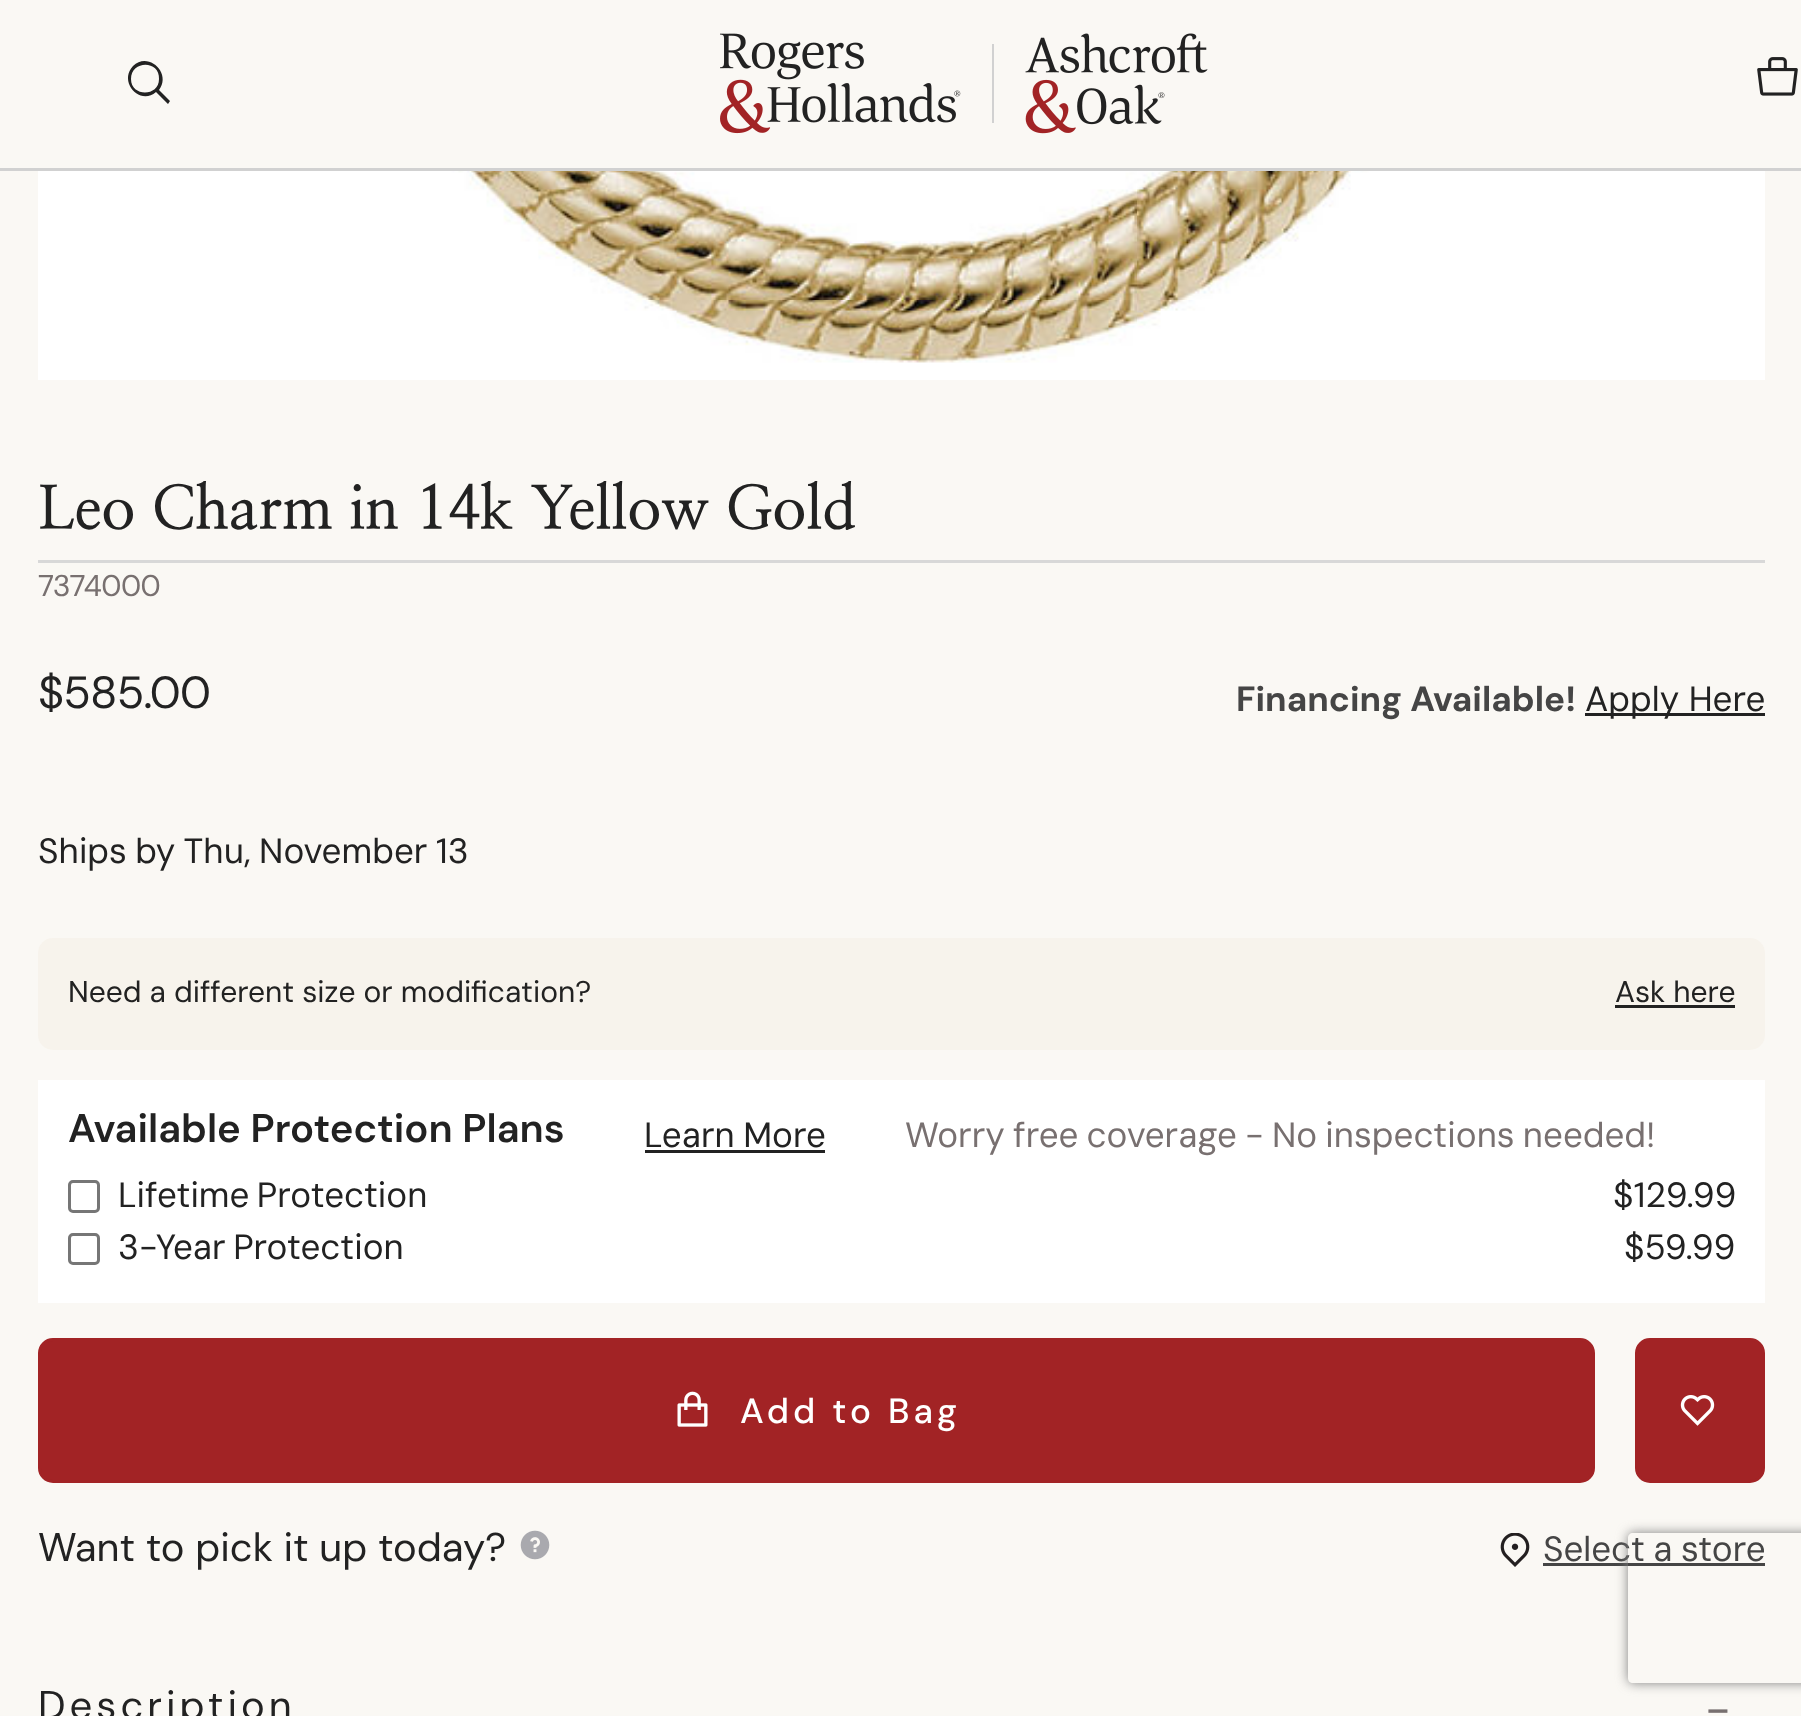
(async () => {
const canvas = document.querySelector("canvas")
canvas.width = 1801
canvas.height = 1716
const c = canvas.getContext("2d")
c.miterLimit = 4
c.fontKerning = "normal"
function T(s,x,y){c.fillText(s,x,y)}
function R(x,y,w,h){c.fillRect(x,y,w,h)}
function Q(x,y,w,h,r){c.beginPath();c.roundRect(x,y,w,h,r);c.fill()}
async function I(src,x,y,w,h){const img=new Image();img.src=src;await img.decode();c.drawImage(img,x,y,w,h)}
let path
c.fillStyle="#faf8f4"
R(0,0,1801,1716)
c.fillStyle="#d1d1d1"
R(0,168,1801,3)
c.fillStyle="#222"
path = new Path2D("M170 101l-11-11c13-17-11-39-26-24c-15 16 7 40 23 26l12 12zm-39-22c0-19 29-19 28 0c0 18-28 18-28 0z")
c.fill(path)
await I("1.png",720,33,488,101)
await I("2.png",1757,57,41,39)
c.fillStyle="#fff"
R(38,171,1727,209)
await I("3.png",349,171,1106,192)
c.fillStyle="#d8d8d8"
R(38,560,1727,3)
c.font="bold 60px NanumMyeongjo"
c.fillStyle="#222"
T("Leo Charm in 14k Yellow Gold",38,529)
c.letterSpacing="-0.5px"
c.font="30px DM Sans"
c.fillStyle="#787070"
T("7374000",38,596)
c.letterSpacing="-0.75px"
c.font="45px 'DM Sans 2'"
c.fillStyle="#222"
T("$585.00",38,708)
c.letterSpacing="0px"
c.font="bold 35px DM Sans"
c.fillStyle="#454545"
T("Financing Available!",1236,711)
c.fillStyle="#222"
R(1585,713,180,3)
c.font="35px 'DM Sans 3'"
T("Apply Here",1585,711)
c.wordSpacing="-1px"
T("Ships by Thu, November 13",38,863)
c.fillStyle="#f7f3ec"
Q(38,938,1727,112,15)
c.wordSpacing="0px"
c.font="30px DM Sans"
c.fillStyle="#222"
T("Need a different size or modification?",68,1002)
T("Ask here",1615,1002)
R(1615,1005,120,3)
c.fillStyle="#fff"
R(38,1080,1727,223)
c.font="600 40px DM Sans"
c.fillStyle="#222"
T("Available Protection Plans",68,1142)
c.wordSpacing="-1px"
c.font="35px 'DM Sans 3'"
T("Learn More",644,1147)
R(645,1150,180,3)
c.wordSpacing="-1.25px"
c.fillStyle="#787070"
T("Worry free coverage - No inspections needed!",905,1147)
c.beginPath()
c.roundRect(69.5,1181.5,29,30,3.5)
c.strokeStyle="#767676"
c.lineWidth=3
c.stroke()
c.wordSpacing="-2px"
c.fillStyle="#222"
T("Lifetime Protection",118,1207)
c.wordSpacing="0px"
T("$129.99",1613,1207)
c.beginPath()
c.roundRect(69.5,1234.5,29,29,3.5)
c.stroke()
c.wordSpacing="-2px"
T("3-Year Protection",118,1259)
c.wordSpacing="0px"
T("$59.99",1624,1259)
c.fillStyle="#a22325"
c.beginPath()
c.roundRect(39.5,1339.5,1554,142,13.5)
c.fill()
c.strokeStyle="#a22325"
c.stroke()
await I("4.png",677,1391,31,36)
c.letterSpacing="4px"
c.font="500 35px DM Sans"
c.fillStyle="#fff"
T("Add to Bag",740,1423)
c.fillStyle="#a22325"
c.beginPath()
c.roundRect(1636.5,1339.5,127,142,13.5)
c.fill()
c.stroke()
await I("5.png",1680,1395,35,31)
c.letterSpacing="0px"
c.font="40px 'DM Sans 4'"
c.fillStyle="#222"
T("Want to pick it up today?",38,1561)
await I("6.png",520,1530,30,30)
await I("7.png",1500,1533,30,34)
c.wordSpacing="-1px"
c.font="35px 'DM Sans 3'"
c.fillStyle="#454545"
T("Select a store",1543,1561)
R(1543,1563,222,3)
c.letterSpacing="4px"
c.wordSpacing="0px"
c.font="40px 'DM Sans 4'"
c.fillStyle="#222"
T("Description",38,1719)
c.font="48px 'DM Sans 3'"
c.fillStyle="#787070"
T("-",1705,1726)
c.save()
path = new Path2D("M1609 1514h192v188h-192zm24 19h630c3 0 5 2 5 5v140c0 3-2 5-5 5h-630c-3 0-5-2-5-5v-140c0-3 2-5 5-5z")
c.clip(path,"evenodd")
c.fillStyle="#808080"
c.filter="blur(6px)"
c.beginPath()
c.roundRect(1628,1533,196,150,5)
c.fill()
c.filter="none"
c.restore()
})()
